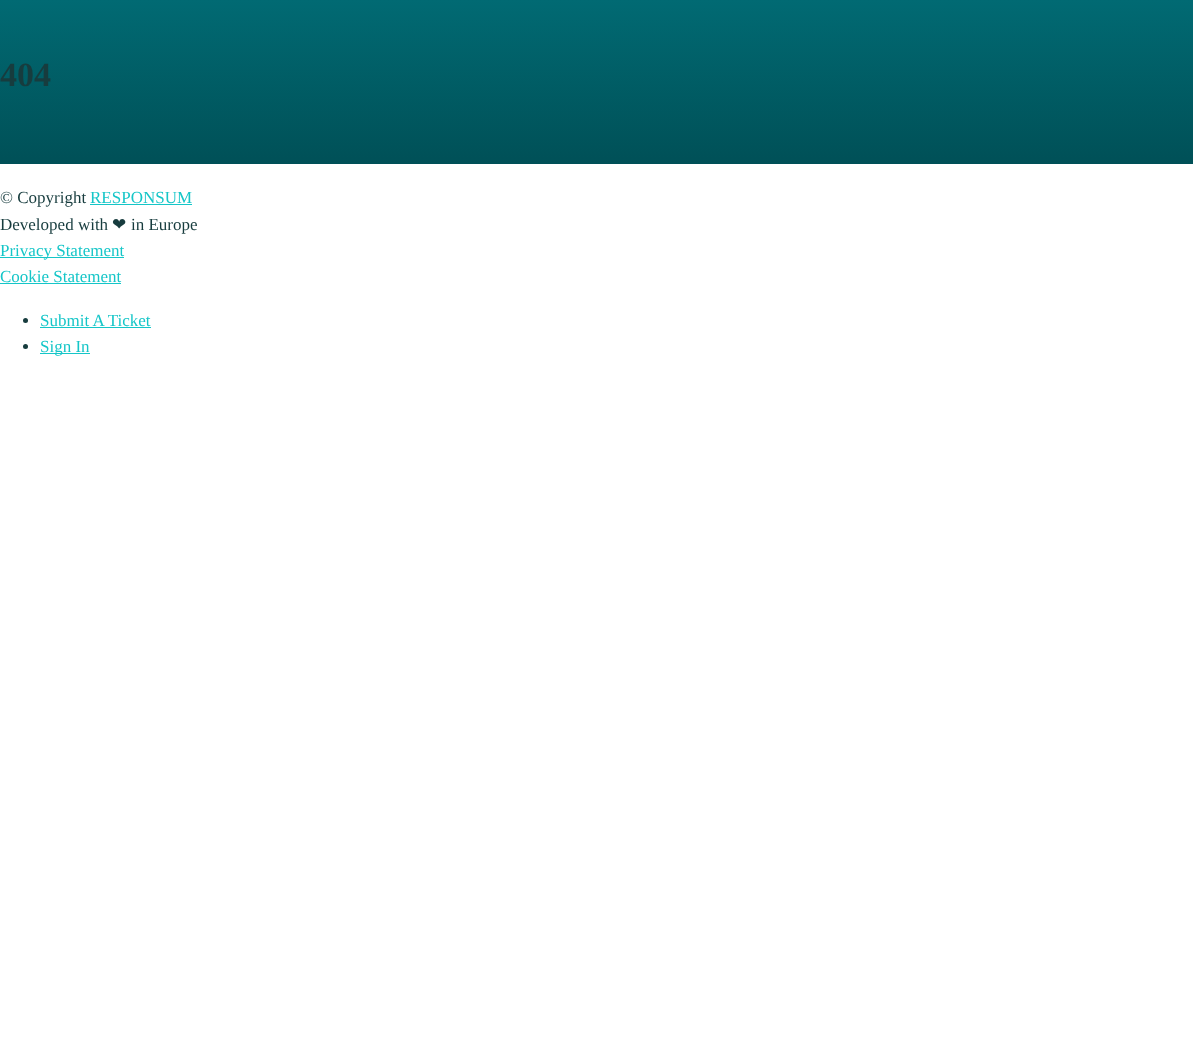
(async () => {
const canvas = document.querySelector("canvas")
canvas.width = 1193
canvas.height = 1047
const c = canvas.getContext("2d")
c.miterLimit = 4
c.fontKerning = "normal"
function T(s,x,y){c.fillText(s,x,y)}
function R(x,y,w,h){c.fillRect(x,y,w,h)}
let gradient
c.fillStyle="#fff"
R(0,0,1193,1047)
gradient = c.createLinearGradient(597,164,597,0)
gradient.addColorStop(0,"#005057")
gradient.addColorStop(1,"#016a73")
c.fillStyle = gradient
R(0,0,1193,164)
c.font="bold 34px Liberation Serif"
c.fillStyle="#173c3e"
T("404",0,86)
c.font="17px Liberation Serif"
T("© Copyright",0,203)
c.fillStyle="#15c6c8"
T("RESPONSUM",90,203)
R(90,204,102,1)
c.fillStyle="#173c3e"
T("Developed with",0,230)
c.font="17px DejaVu Sans"
T("❤",112,230)
c.font="17px Liberation Serif"
T("in Europe",131,230)
c.fillStyle="#15c6c8"
R(0,257,124,1)
T("Privacy Statement",0,256)
T("Cookie Statement",0,282)
R(0,283,121,1)
c.fillStyle="#173c3e"
c.beginPath()
c.arc(25.5,320.5,2.5,0,7)
c.fill()
c.fillStyle="#15c6c8"
T("Submit A Ticket",40,326)
R(40,327,111,1)
c.fillStyle="#173c3e"
c.beginPath()
c.arc(25.5,346.5,2.5,0,7)
c.fill()
c.fillStyle="#15c6c8"
R(40,353,50,1)
T("Sign In",40,352)
})()
